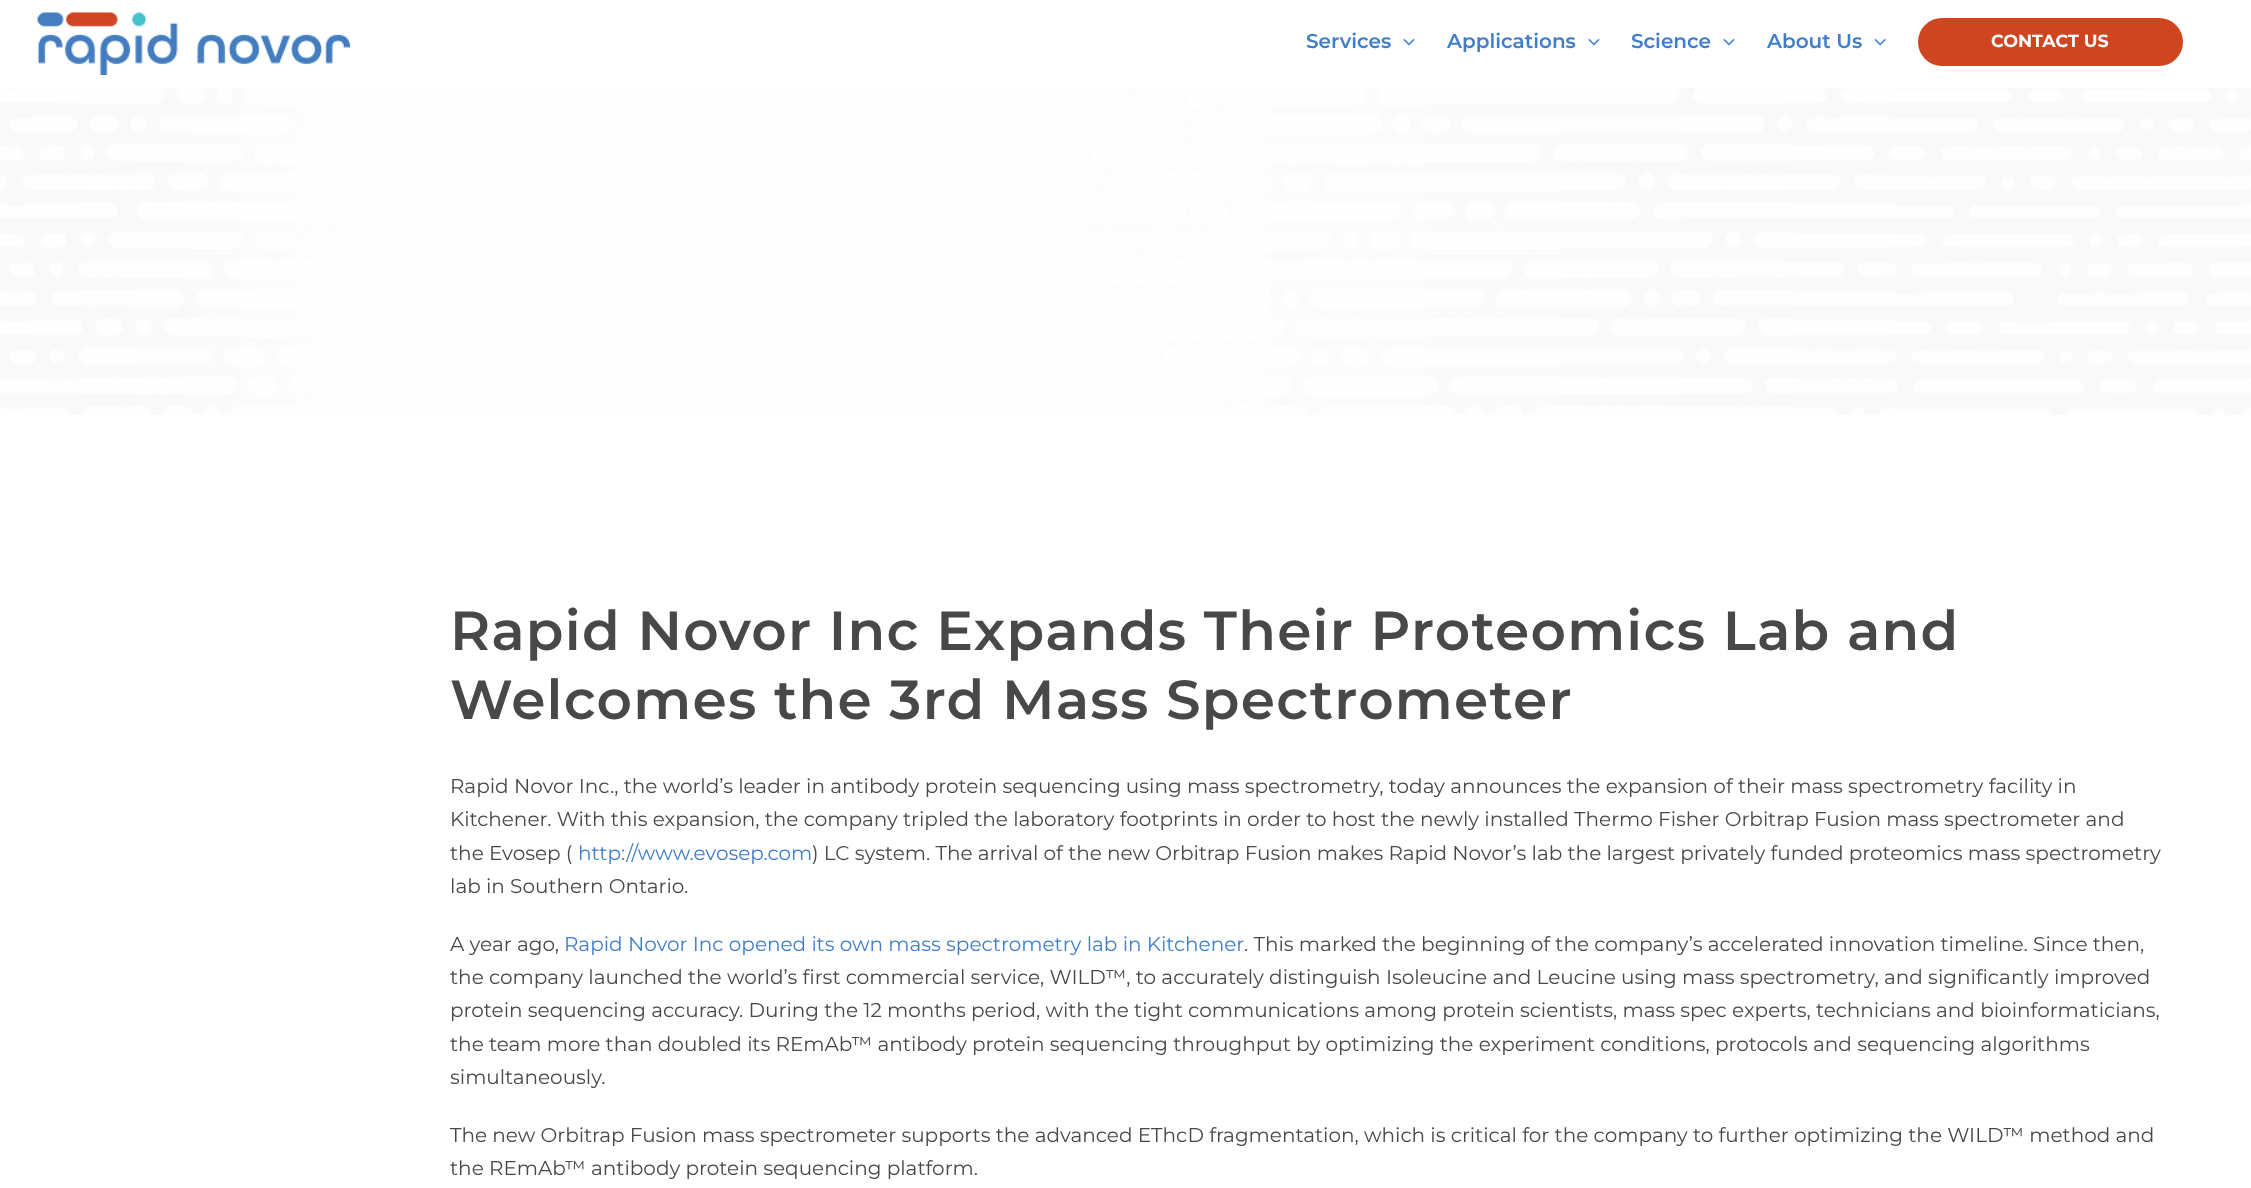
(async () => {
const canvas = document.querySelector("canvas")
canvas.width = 2251
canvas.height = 1188
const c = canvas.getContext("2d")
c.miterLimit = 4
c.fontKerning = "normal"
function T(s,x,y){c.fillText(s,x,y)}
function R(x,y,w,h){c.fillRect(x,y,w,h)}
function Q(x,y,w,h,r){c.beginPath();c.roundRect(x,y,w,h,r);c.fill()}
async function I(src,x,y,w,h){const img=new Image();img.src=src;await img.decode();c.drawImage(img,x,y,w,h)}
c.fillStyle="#fff"
R(0,0,2251,1188)
await I("1.png",37,12,313,63)
c.font="600 20px Montserrat"
c.fillStyle="#407ec9"
T("Services",1306,48)
await I("2.png",1403,38,12,8)
T("Applications",1447,48)
await I("2.png",1588,38,12,8)
T("Science",1631,48)
await I("2.png",1723,38,12,8)
T("About Us",1767,48)
await I("3.png",1874,38,12,8)
c.fillStyle="#cf4520"
Q(1918,18,265,48,24)
c.font="bold 17.5px Montserrat"
c.fillStyle="#fff"
T("CONTACT US",1991,47)
await I("4.png",0,88,2251,327)
c.letterSpacing="1.25px"
c.font="600 55px Montserrat"
c.fillStyle="#484848"
T("Rapid Novor Inc Expands Their Proteomics Lab and",450,650)
T("Welcomes the 3rd Mass Spectrometer",450,719)
c.letterSpacing="0px"
c.font="20px Montserrat"
T("Rapid Novor Inc., the world’s leader in antibody protein sequencing using mass spectrometry, today announces the expansion of their mass spectrometry facility in",450,793)
T("Kitchener. With this expansion, the company tripled the laboratory footprints in order to host the newly installed Thermo Fisher Orbitrap Fusion mass spectrometer and",450,826)
T("the Evosep (",450,860)
c.fillStyle="#407ec9"
T("http://www.evosep.com",578,860)
c.fillStyle="#484848"
T(") LC system. The arrival of the new Orbitrap Fusion makes Rapid Novor’s lab the largest privately funded proteomics mass spectrometry",812,860)
T("lab in Southern Ontario.",450,893)
T("A year ago,",450,951)
c.fillStyle="#407ec9"
T("Rapid Novor Inc opened its own mass spectrometry lab in Kitchener",564,951)
c.fillStyle="#484848"
T(". This marked the beginning of the company’s accelerated innovation timeline. Since then,",1244,951)
T("the company launched the world’s first commercial service, WILD™, to accurately distinguish Isoleucine and Leucine using mass spectrometry, and significantly improved",450,984)
T("protein sequencing accuracy. During the 12 months period, with the tight communications among protein scientists, mass spec experts, technicians and bioinformaticians,",450,1017)
T("the team more than doubled its REmAb™ antibody protein sequencing throughput by optimizing the experiment conditions, protocols and sequencing algorithms",450,1051)
T("simultaneously.",450,1084)
T("The new Orbitrap Fusion mass spectrometer supports the advanced EThcD fragmentation, which is critical for the company to further optimizing the WILD™ method and",450,1142)
T("the REmAb™ antibody protein sequencing platform.",450,1175)
})()
